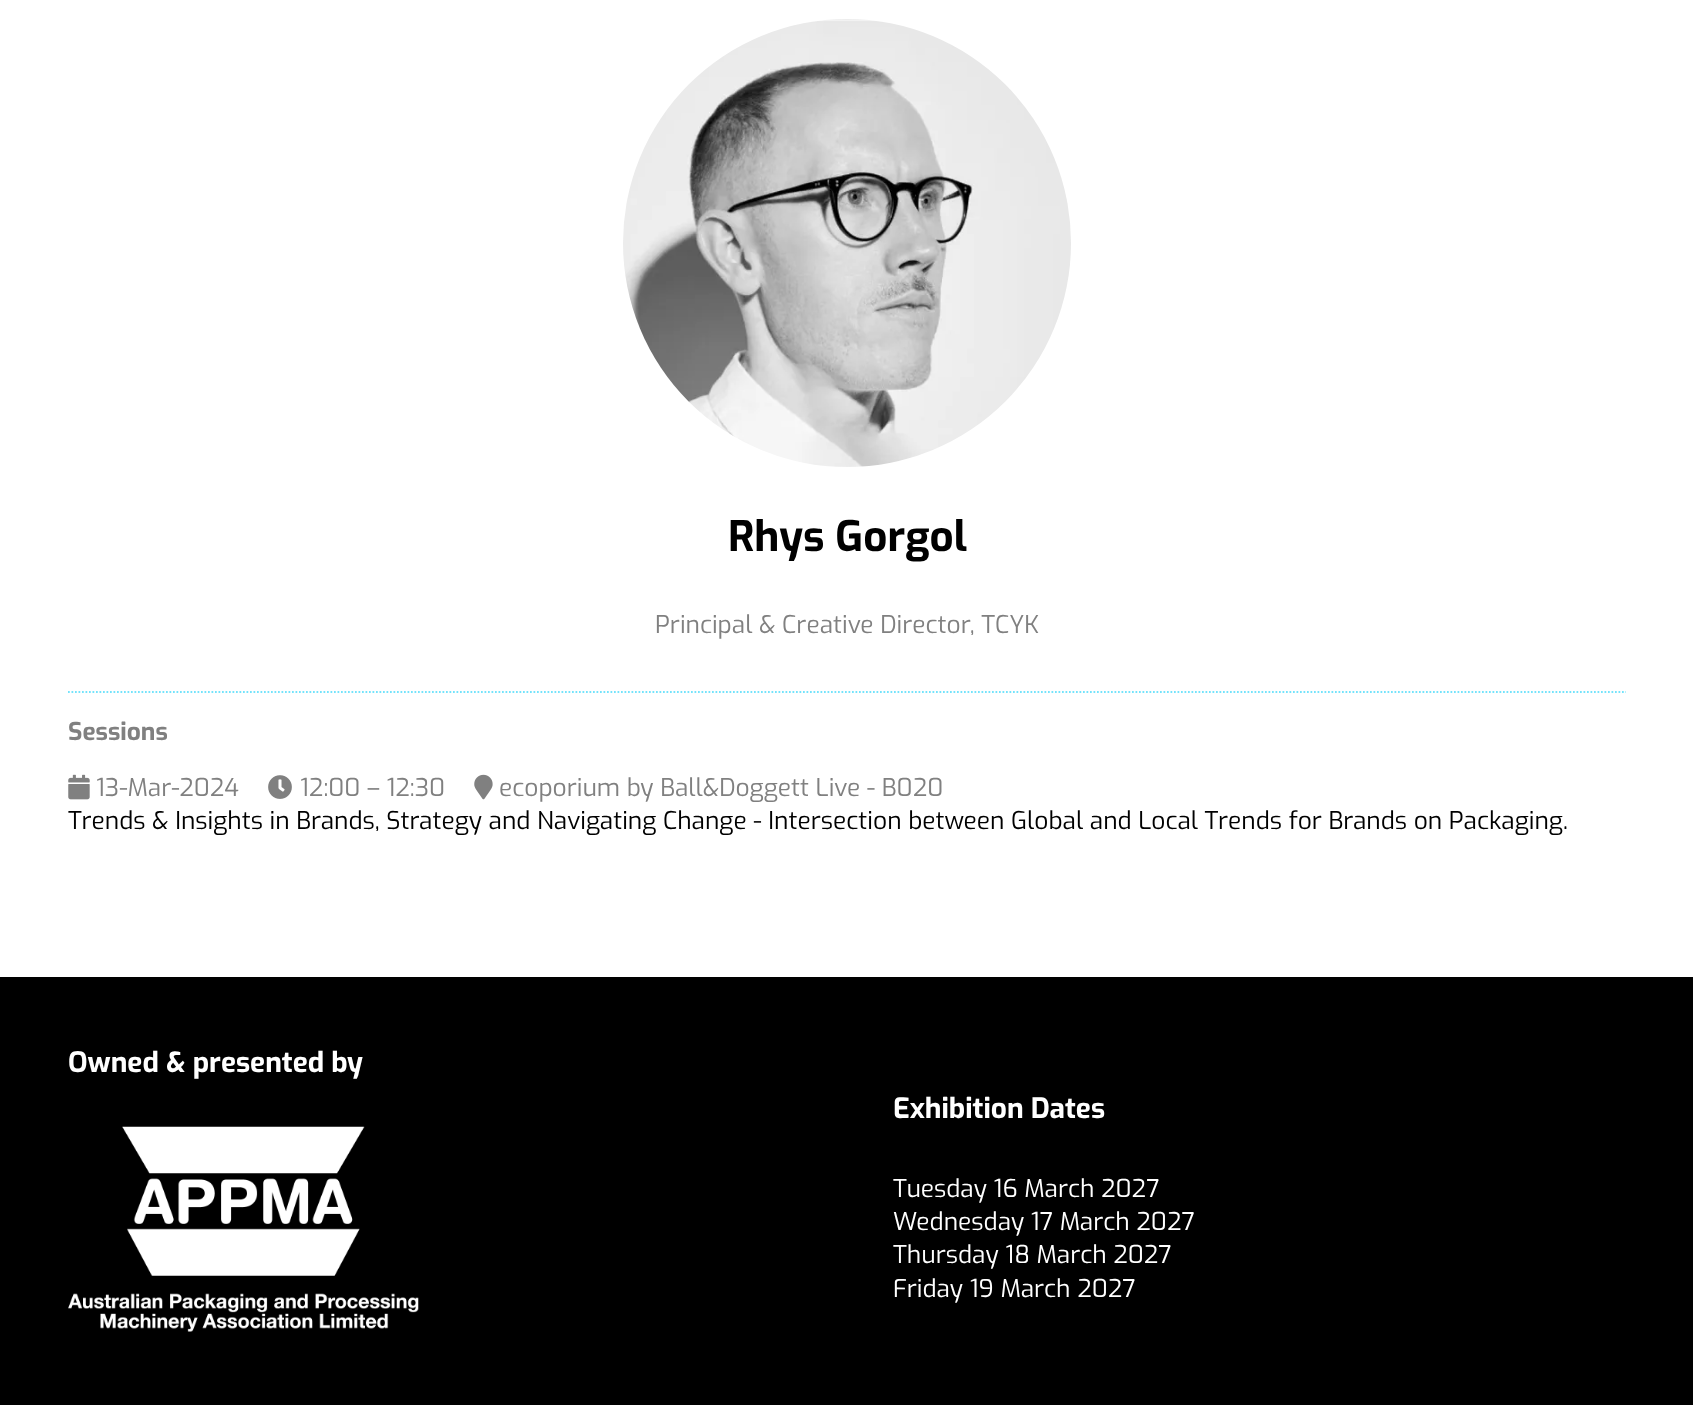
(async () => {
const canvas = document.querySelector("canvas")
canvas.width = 1693
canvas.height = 1405
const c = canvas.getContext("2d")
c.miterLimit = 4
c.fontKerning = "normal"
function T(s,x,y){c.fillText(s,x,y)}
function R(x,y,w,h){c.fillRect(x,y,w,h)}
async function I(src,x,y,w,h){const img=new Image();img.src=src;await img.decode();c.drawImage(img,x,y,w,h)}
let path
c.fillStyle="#fff"
R(0,0,1693,1405)
await I("1.png",623,19,448,448)
c.font="bold 42px Exo"
c.fillStyle="#000"
T("Rhys Gorgol",728,551)
c.font="24.5px Exo"
c.fillStyle="#808080"
T("Principal & Creative Director, TCYK",655,633)
path = new Path2D("M68 692h1558")
c.strokeStyle="#74e3fb"
c.lineWidth=1.8
c.setLineDash([1.75,1.75])
c.stroke(path)
c.font="bold 24.5px Exo"
T("Sessions",68,740)
await I("2.png",68,774,22,26)
c.font="24.5px Exo"
T("13-Mar-2024",96,796)
await I("3.png",268,775,24,24)
T("12:00 – 12:30",300,796)
await I("4.png",474,774,19,26)
T("ecoporium by Ball&Doggett Live - B020",499,796)
c.fillStyle="#000"
T("Trends & Insights in Brands, Strategy and Navigating Change - Intersection between Global and Local Trends for Brands on Packaging.",68,829)
R(0,977,1693,428)
c.font="bold 28px Exo"
c.fillStyle="#fff"
T("Owned & presented by",68,1072)
await I("5.png",68,1126,351,206)
T("Exhibition Dates",893,1118)
c.font="24.5px Exo"
T("Tuesday 16 March 2027",893,1197)
T("Wednesday 17 March 2027",893,1230)
T("Thursday 18 March 2027",893,1263)
T("Friday 19 March 2027",893,1297)
})()
